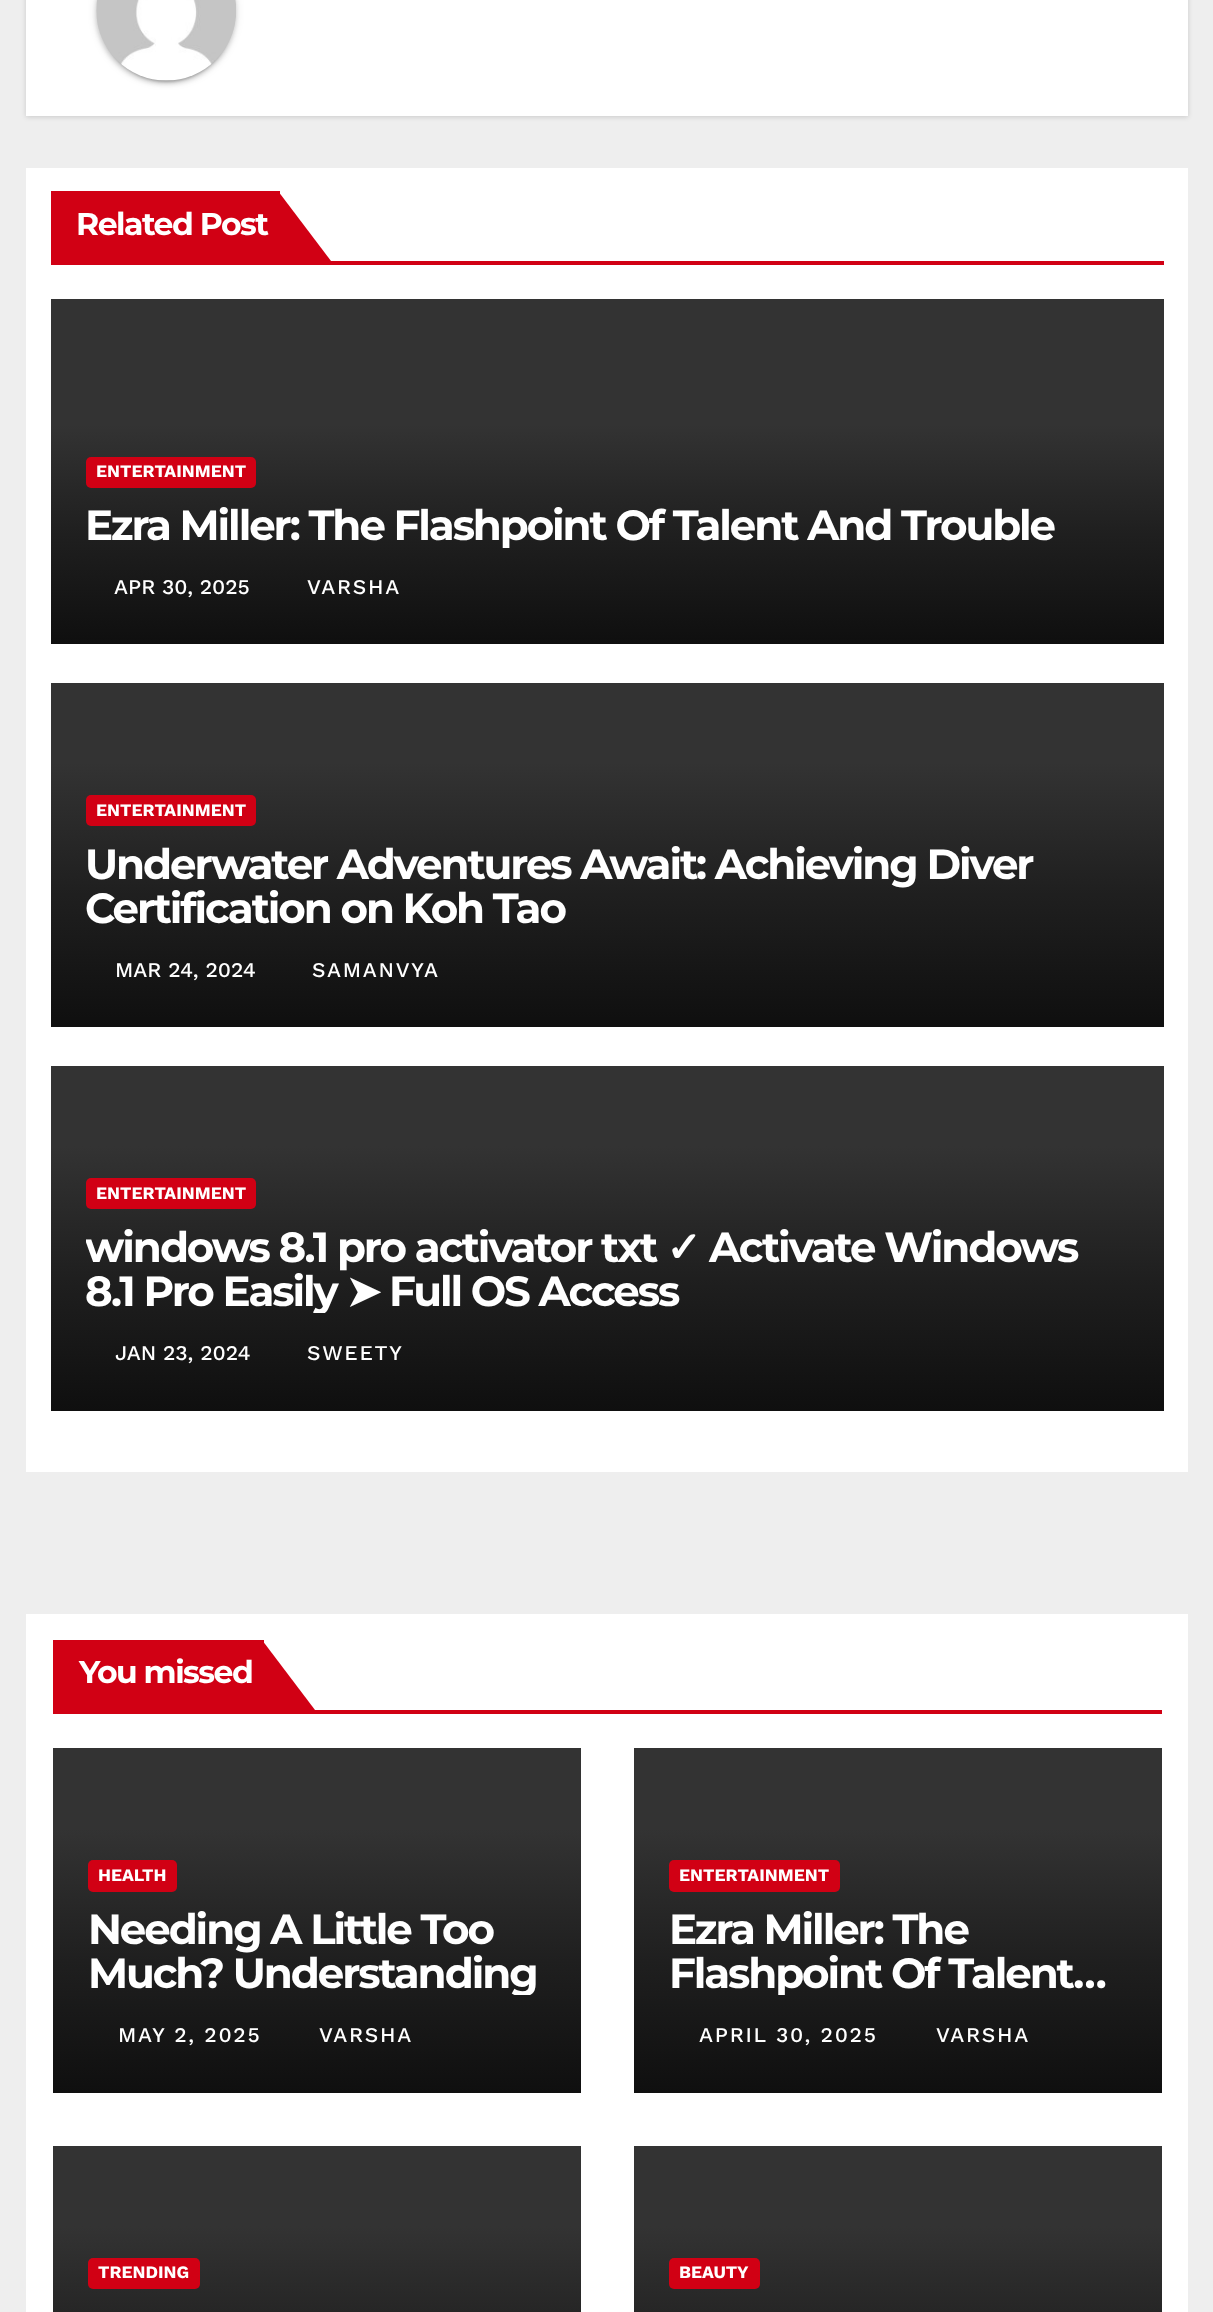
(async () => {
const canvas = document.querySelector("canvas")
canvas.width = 1213
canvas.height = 2312
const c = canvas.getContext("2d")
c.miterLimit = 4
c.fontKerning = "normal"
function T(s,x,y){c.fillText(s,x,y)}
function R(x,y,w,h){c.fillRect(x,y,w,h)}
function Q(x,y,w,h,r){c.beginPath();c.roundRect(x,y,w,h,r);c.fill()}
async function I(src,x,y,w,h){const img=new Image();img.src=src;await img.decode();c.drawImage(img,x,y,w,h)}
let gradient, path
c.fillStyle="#eee"
R(0,0,1213,2312)
c.fillStyle="#00000026"
c.filter="blur(2.5px)"
c.beginPath()
c.rect(26,-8,1162,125)
c.fill()
c.filter="none"
c.fillStyle="#fff"
R(26,0,1162,116)
c.fillStyle="#0000001f"
c.filter="blur(4.5px)"
c.beginPath()
c.roundRect(96,-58,140,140,70)
c.fill()
c.filter="none"
c.fillStyle="#00000033"
c.filter="blur(1px)"
c.beginPath()
c.roundRect(100,-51,133,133,66.5)
c.fill()
c.filter="none"
c.fillStyle="#00000024"
c.filter="blur(2px)"
c.beginPath()
c.roundRect(96,-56,140,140,70)
c.fill()
c.filter="none"
await I("1.png",96,0,140,81)
c.fillStyle="#fff"
R(26,168,1162,1304)
c.fillStyle="#d10014"
R(51,261,1113,4)
R(51,191,229,70)
c.letterSpacing="-1.5px"
c.font="bold 31.5px Montserrat"
c.fillStyle="#fff"
T("Related Post",76,235)
c.fillStyle="#d10014"
path = new Path2D("M278 261v-70l53 70z")
c.fill(path)
c.fillStyle="#333"
R(51,299,1113,126)
gradient = c.createLinearGradient(607,425,607,644)
gradient.addColorStop(0,"#333")
gradient.addColorStop(.5,"#1f1f1f")
gradient.addColorStop(1,"#0f0f0f")
c.fillStyle = gradient
R(51,425,1113,219)
c.fillStyle="#d10014"
Q(86,457,170,31,5)
c.letterSpacing="0px"
c.font="bold 17.5px Work Sans"
c.fillStyle="#fff"
T("ENTERTAINMENT",96,477)
c.save()
c.beginPath()
c.rect(86,504,1043,44)
c.clip()
c.letterSpacing="-2.1px"
c.font="bold 42px Montserrat"
T("Ezra Miller: The Flashpoint Of Talent And Trouble",85,540)
c.restore()
c.font="500 21px Work Sans"
T("APR 30, 2025",114,594)
c.letterSpacing="1.75px"
T("VARSHA",307,594)
c.fillStyle="#333"
R(51,683,1113,80)
gradient = c.createLinearGradient(607,763,607,1027)
gradient.addColorStop(0,"#333")
gradient.addColorStop(.5,"#1f1f1f")
gradient.addColorStop(1,"#0f0f0f")
c.fillStyle = gradient
R(51,763,1113,264)
c.fillStyle="#d10014"
Q(86,795,170,31,5)
c.letterSpacing="0px"
c.font="bold 17.5px Work Sans"
c.fillStyle="#fff"
T("ENTERTAINMENT",96,816)
c.letterSpacing="-2.1px"
c.font="bold 42px Montserrat"
T("Underwater Adventures Await: Achieving Diver",85,879)
T("Certification on Koh Tao",85,923)
c.letterSpacing="0px"
c.font="500 21px Work Sans"
T("MAR 24, 2024",115,977)
c.letterSpacing="1.75px"
T("SAMANVYA",312,977)
c.fillStyle="#333"
R(51,1066,1113,80)
gradient = c.createLinearGradient(607,1146,607,1411)
gradient.addColorStop(0,"#333")
gradient.addColorStop(.5,"#1f1f1f")
gradient.addColorStop(1,"#0f0f0f")
c.fillStyle = gradient
R(51,1146,1113,265)
c.fillStyle="#d10014"
Q(86,1178,170,31,5)
c.letterSpacing="0px"
c.font="bold 17.5px Work Sans"
c.fillStyle="#fff"
T("ENTERTAINMENT",96,1199)
c.save()
c.beginPath()
c.rect(86,1225,1043,88)
c.clip()
c.letterSpacing="-2.1px"
c.font="bold 42px Montserrat"
T("windows 8.1 pro activator txt",85,1262)
c.restore()
c.letterSpacing="-2.1px"
c.font="bold 42px DejaVu Sans"
T("✓",666,1262)
c.font="bold 42px Montserrat"
T("Activate Windows",709,1262)
c.save()
c.beginPath()
c.rect(86,1225,1043,88)
c.clip()
T("8.1 Pro Easily",85,1306)
c.restore()
c.font="bold 42px DejaVu Sans"
T("➤",346,1306)
c.font="bold 42px Montserrat"
T("Full OS Access",389,1306)
c.letterSpacing="0px"
c.font="500 21px Work Sans"
T("JAN 23, 2024",115,1360)
c.letterSpacing="1.75px"
T("SWEETY",307,1360)
R(26,1614,1162,698)
c.fillStyle="#d10014"
R(53,1710,1109,4)
R(53,1640,211,70)
c.letterSpacing="-1.5px"
c.font="bold 31.5px Montserrat"
c.fillStyle="#fff"
T("You missed",79,1683)
c.fillStyle="#d10014"
path = new Path2D("M262 1710v-70l53 70z")
c.fill(path)
c.fillStyle="#333"
R(53,1748,528,81)
gradient = c.createLinearGradient(317,1829,317,2093)
gradient.addColorStop(0,"#333")
gradient.addColorStop(.5,"#1f1f1f")
gradient.addColorStop(1,"#0f0f0f")
c.fillStyle = gradient
R(53,1829,528,264)
c.fillStyle="#d10014"
Q(88,1860,89,32,5)
c.letterSpacing="0px"
c.font="bold 17.5px Work Sans"
c.fillStyle="#fff"
T("HEALTH",98,1881)
c.letterSpacing="-2.1px"
c.font="bold 42px Montserrat"
T("Needing A Little Too",88,1944)
c.save()
c.beginPath()
c.rect(88,1908,458,87)
c.clip()
T("Much? Understanding",88,1988)
c.restore()
c.letterSpacing="1.75px"
c.font="500 21px Work Sans"
T("MAY 2, 2025",118,2042)
T("VARSHA",319,2042)
c.fillStyle="#333"
R(634,1748,528,81)
gradient = c.createLinearGradient(898,1829,898,2093)
gradient.addColorStop(0,"#333")
gradient.addColorStop(.5,"#1f1f1f")
gradient.addColorStop(1,"#0f0f0f")
c.fillStyle = gradient
R(634,1829,528,264)
c.fillStyle="#d10014"
Q(669,1860,171,32,5)
c.letterSpacing="0px"
c.font="bold 17.5px Work Sans"
c.fillStyle="#fff"
T("ENTERTAINMENT",679,1881)
c.letterSpacing="-2.1px"
c.font="bold 42px Montserrat"
T("Ezra Miller: The",669,1944)
c.save()
c.beginPath()
c.rect(669,1908,458,87)
c.clip()
T("Flashpoint Of Talent…",669,1988)
c.restore()
c.letterSpacing="1.75px"
c.font="500 21px Work Sans"
T("APRIL 30, 2025",699,2042)
T("VARSHA",936,2042)
c.fillStyle="#333"
R(53,2146,528,80)
gradient = c.createLinearGradient(317,2226,317,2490)
gradient.addColorStop(0,"#333")
gradient.addColorStop(.5,"#1f1f1f")
gradient.addColorStop(1,"#0f0f0f")
c.fillStyle = gradient
R(53,2226,528,86)
c.fillStyle="#d10014"
Q(88,2258,112,31,5)
c.letterSpacing="0px"
c.font="bold 17.5px Work Sans"
c.fillStyle="#fff"
T("TRENDING",98,2278)
c.fillStyle="#333"
R(634,2146,528,80)
gradient = c.createLinearGradient(898,2226,898,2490)
gradient.addColorStop(0,"#333")
gradient.addColorStop(.5,"#1f1f1f")
gradient.addColorStop(1,"#0f0f0f")
c.fillStyle = gradient
R(634,2226,528,86)
c.fillStyle="#d10014"
Q(669,2258,91,31,5)
c.fillStyle="#fff"
T("BEAUTY",679,2278)
})()
